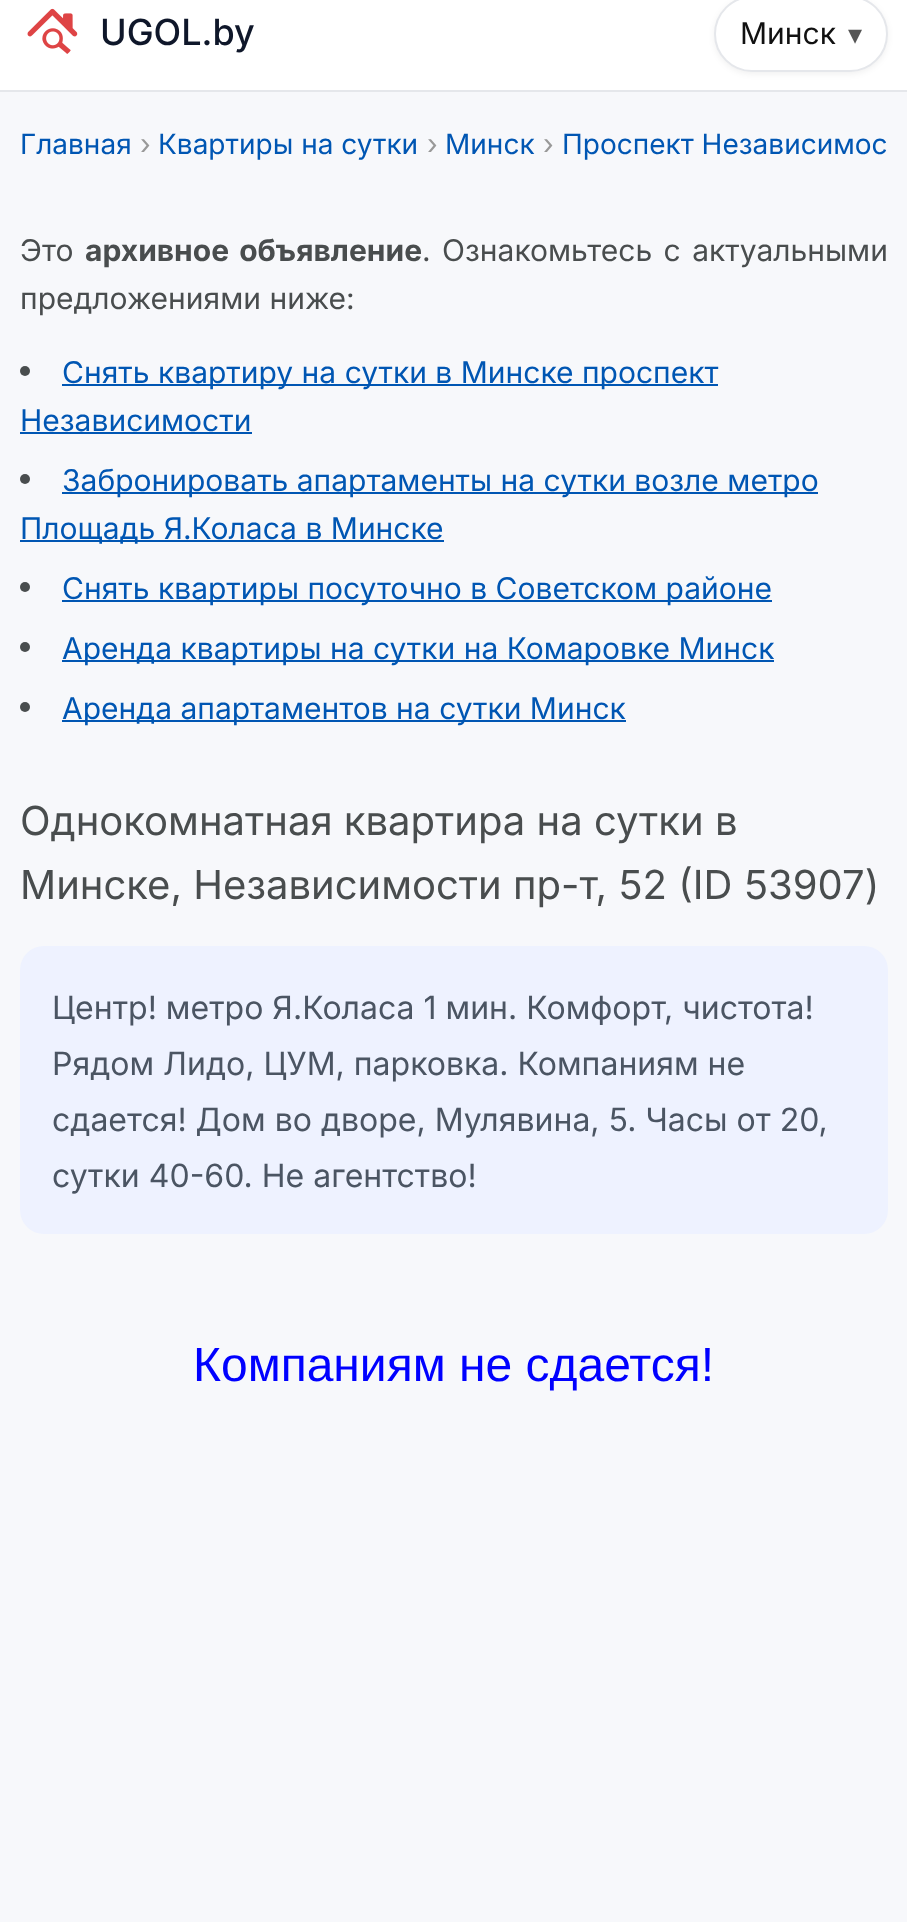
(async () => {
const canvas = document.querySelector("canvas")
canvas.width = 907
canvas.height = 1922
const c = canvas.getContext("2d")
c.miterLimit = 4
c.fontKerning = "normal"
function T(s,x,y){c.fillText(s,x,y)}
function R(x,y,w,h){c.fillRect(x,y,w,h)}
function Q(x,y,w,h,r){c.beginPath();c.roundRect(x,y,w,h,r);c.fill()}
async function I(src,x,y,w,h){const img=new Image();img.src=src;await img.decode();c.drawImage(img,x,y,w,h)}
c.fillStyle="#f7f8fb"
R(0,0,907,1922)
c.fillStyle="#fff"
R(0,0,907,90)
c.fillStyle="#e5e7eb"
R(0,90,907,2)
await I("1.png",27,8,51,46)
c.font="500 36px Inter"
c.fillStyle="#0f172a"
T("UGOL.by",100,45)
c.fillStyle="#0000000f"
c.filter="blur(3px)"
c.beginPath()
c.roundRect(714,-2,174,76,38)
c.fill()
c.filter="none"
c.fillStyle="#fff"
c.beginPath()
c.roundRect(715,-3,172,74,37)
c.fill()
c.strokeStyle="#e5e7eb"
c.lineWidth=2
c.stroke()
c.font="30px Inter"
c.fillStyle="#111"
T("Минск",740,44)
c.font="28px DejaVu Sans"
c.fillStyle="#555"
T("▾",848,44)
c.font="28px Inter"
c.fillStyle="#0056b3"
T("Главная",20,154)
c.fillStyle="#999"
T("›",140,154)
c.fillStyle="#0056b3"
T("Квартиры на сутки",158,154)
c.fillStyle="#999"
T("›",427,154)
c.fillStyle="#0056b3"
T("Минск",445,154)
c.fillStyle="#999"
T("›",543,154)
c.fillStyle="#0056b3"
T("Проспект Независимос",562,154)
c.font="30px Inter"
c.fillStyle="#494d4e"
T("Это",20,261)
c.wordSpacing="3px"
c.font="bold 30px Inter"
T("архивное объявление",85,261)
c.font="30px Inter"
T(". Ознакомьтесь с актуальными",422,261)
c.wordSpacing="0px"
T("предложениями ниже:",20,309)
c.beginPath()
c.arc(25,371,5,0,7)
c.fill()
c.fillStyle="#0056b3"
R(62,384,656,2)
T("Снять квартиру на сутки в Минске проспект",62,383)
T("Независимости",20,431)
R(20,432,232,2)
c.fillStyle="#494d4e"
c.beginPath()
c.arc(25,479,5,0,7)
c.fill()
c.fillStyle="#0056b3"
R(62,492,756,2)
T("Забронировать апартаменты на сутки возле метро",62,491)
R(20,540,424,2)
T("Площадь Я.Коласа в Минске",20,539)
c.fillStyle="#494d4e"
c.beginPath()
c.arc(25,587,5,0,7)
c.fill()
c.fillStyle="#0056b3"
R(62,600,710,2)
T("Снять квартиры посуточно в Советском районе",62,599)
c.fillStyle="#494d4e"
c.beginPath()
c.arc(25,647,5,0,7)
c.fill()
c.fillStyle="#0056b3"
R(62,660,712,2)
T("Аренда квартиры на сутки на Комаровке Минск",62,659)
c.fillStyle="#494d4e"
c.beginPath()
c.arc(25,707,5,0,7)
c.fill()
c.fillStyle="#0056b3"
R(62,720,564,2)
T("Аренда апартаментов на сутки Минск",62,719)
c.font="40px Inter"
c.fillStyle="#494d4e"
T("Однокомнатная квартира на сутки в",20,835)
T("Минске, Независимости пр-т, 52 (ID 53907)",20,899)
c.fillStyle="#eef2ff"
Q(20,946,868,288,24)
c.font="32px Inter"
c.fillStyle="#4b5563"
T("Центр! метро Я.Коласа 1 мин. Комфорт, чистота!",52,1019)
T("Рядом Лидо, ЦУМ, парковка. Компаниям не",52,1075)
T("сдается! Дом во дворе, Мулявина, 5. Часы от 20,",52,1131)
T("сутки 40-60. Не агентство!",52,1187)
c.font="48px Liberation Sans"
c.fillStyle="#00f"
T("Компаниям не сдается!",193,1381)
})()
